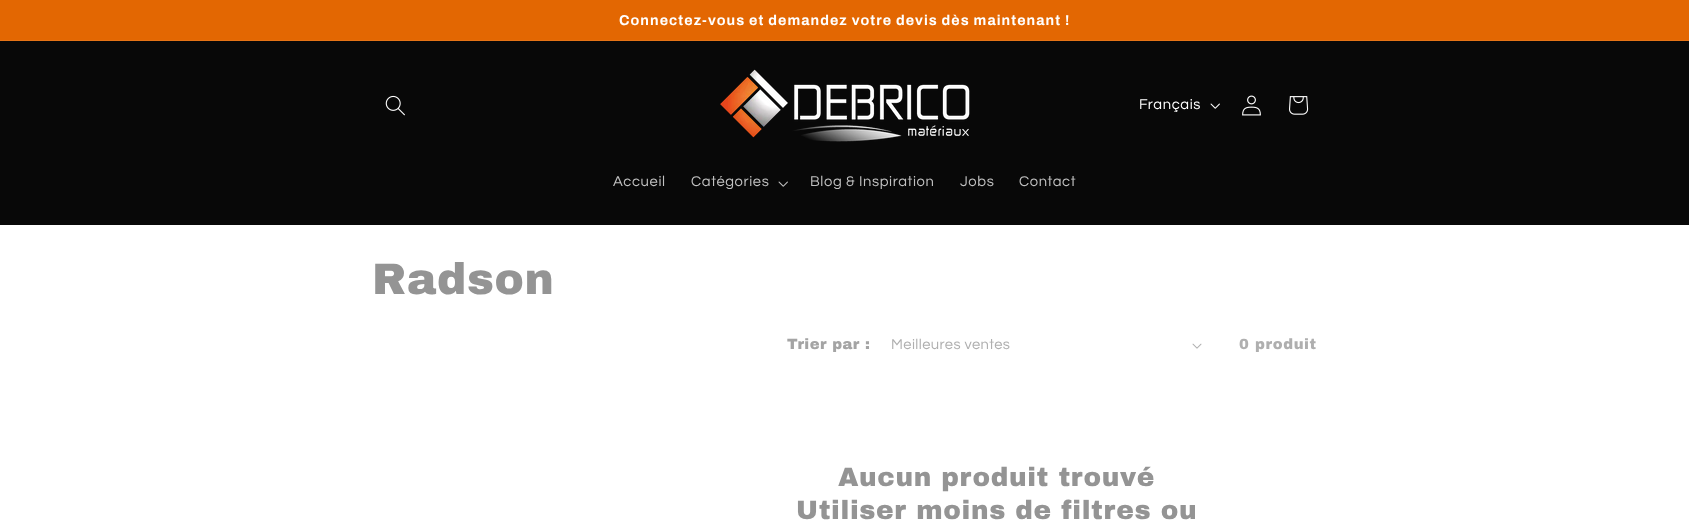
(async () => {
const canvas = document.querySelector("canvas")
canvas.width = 1689
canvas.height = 523
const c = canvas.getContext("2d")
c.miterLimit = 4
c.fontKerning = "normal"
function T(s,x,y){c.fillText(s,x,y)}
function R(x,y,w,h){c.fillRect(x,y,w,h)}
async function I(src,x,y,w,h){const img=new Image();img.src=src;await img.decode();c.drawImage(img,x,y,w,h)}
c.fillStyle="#fff"
R(0,0,1689,523)
c.fillStyle="#e36702"
R(0,0,1689,40)
c.fillStyle="#e57316"
R(0,40,1689,1)
c.letterSpacing="1.05px"
c.font="bold 14.3px Archivo"
c.fillStyle="#fff"
T("Connectez-vous et demandez votre devis dès maintenant !",619,25)
c.fillStyle="#080808"
R(0,41,1689,184)
await I("1.png",385,95,20,21)
await I("2.png",720,69,250,73)
c.letterSpacing="0.6px"
c.font="14.75px Questrial"
c.fillStyle="#fff"
T("Français",1139,109)
await I("3.png",1210,103,10,6)
await I("4.png",1242,95,19,21)
await I("5.png",1289,96,20,19)
c.fillStyle="#c1c1c1"
T("Accueil",613,186)
T("Catégories",691,186)
await I("6.png",778,181,10,6)
T("Blog & Inspiration",810,186)
T("Jobs",960,186)
T("Contact",1019,186)
c.letterSpacing="0.65px"
c.font="900 44px Archivo Black"
c.fillStyle="#949494"
T("Radson",372,294)
c.letterSpacing="0.4px"
c.font="900 14.75px Archivo Black"
c.fillStyle="#a4a4a4"
T("Trier par :",787,349)
c.font="14.75px Questrial"
c.fillStyle="#afafaf"
T("Meilleures ventes",891,349)
await I("7.png",1192,343,10,6)
c.letterSpacing="0.6px"
c.font="900 14.75px Archivo Black"
T("0 produit",1239,349)
c.letterSpacing="0.65px"
c.font="900 26.4px Archivo Black"
c.fillStyle="#949494"
T("Aucun produit trouvé",838,486)
T("Utiliser moins de filtres ou",796,519)
})()
